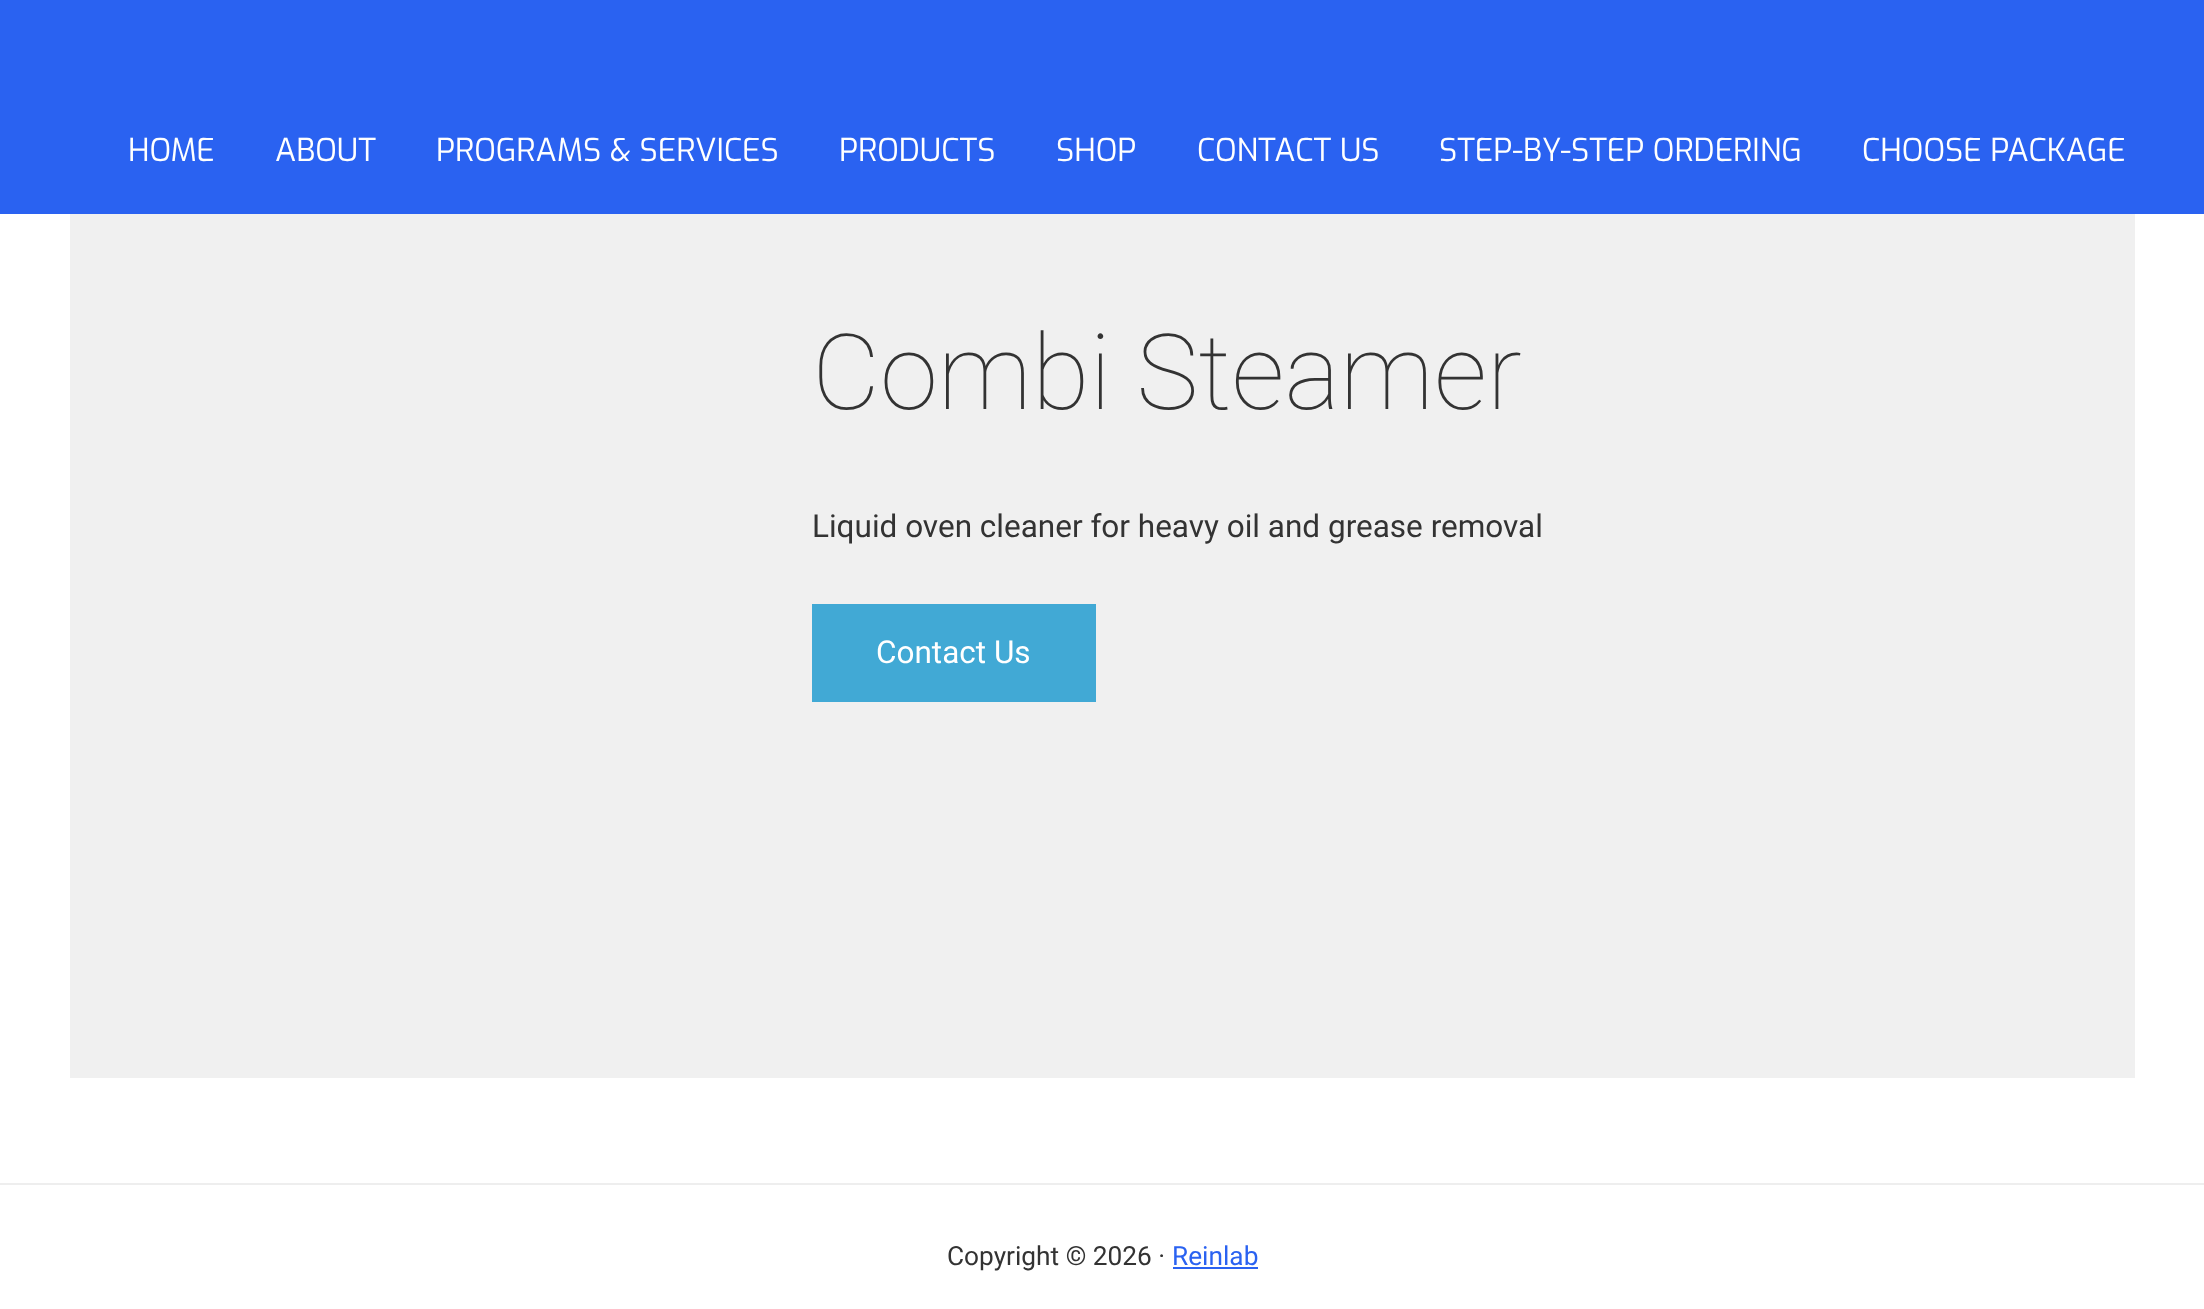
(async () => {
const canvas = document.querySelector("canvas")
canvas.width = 2204
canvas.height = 1309
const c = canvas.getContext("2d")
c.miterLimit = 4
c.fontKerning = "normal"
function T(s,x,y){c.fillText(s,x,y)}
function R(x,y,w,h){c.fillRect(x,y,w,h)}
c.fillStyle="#fff"
R(0,0,2204,1309)
c.fillStyle="#2a62f1"
R(0,0,2204,214)
c.font="31.5px Exo"
c.fillStyle="#fff"
T("HOME",128,161)
T("ABOUT",275,161)
T("PROGRAMS & SERVICES",436,161)
T("PRODUCTS",839,161)
T("SHOP",1056,161)
T("CONTACT US",1197,161)
T("STEP-BY-STEP ORDERING",1439,161)
T("CHOOSE PACKAGE",1862,161)
c.fillStyle="#f0f0f0"
R(70,214,2065,864)
c.font="100 105px Roboto"
c.fillStyle="#333"
T("Combi Steamer",812,409)
c.font="31.5px Roboto"
T("Liquid oven cleaner for heavy oil and grease removal",812,537)
c.fillStyle="#41a9d5"
R(812,604,284,98)
c.fillStyle="#fff"
T("Contact Us",876,663)
c.fillStyle="#eee"
R(0,1183,2204,2)
c.font="26.25px Roboto"
c.fillStyle="#333"
T("Copyright © 2026 ·",947,1265)
c.fillStyle="#2a62f1"
T("Reinlab",1172,1265)
R(1173,1267,85,2)
})()
